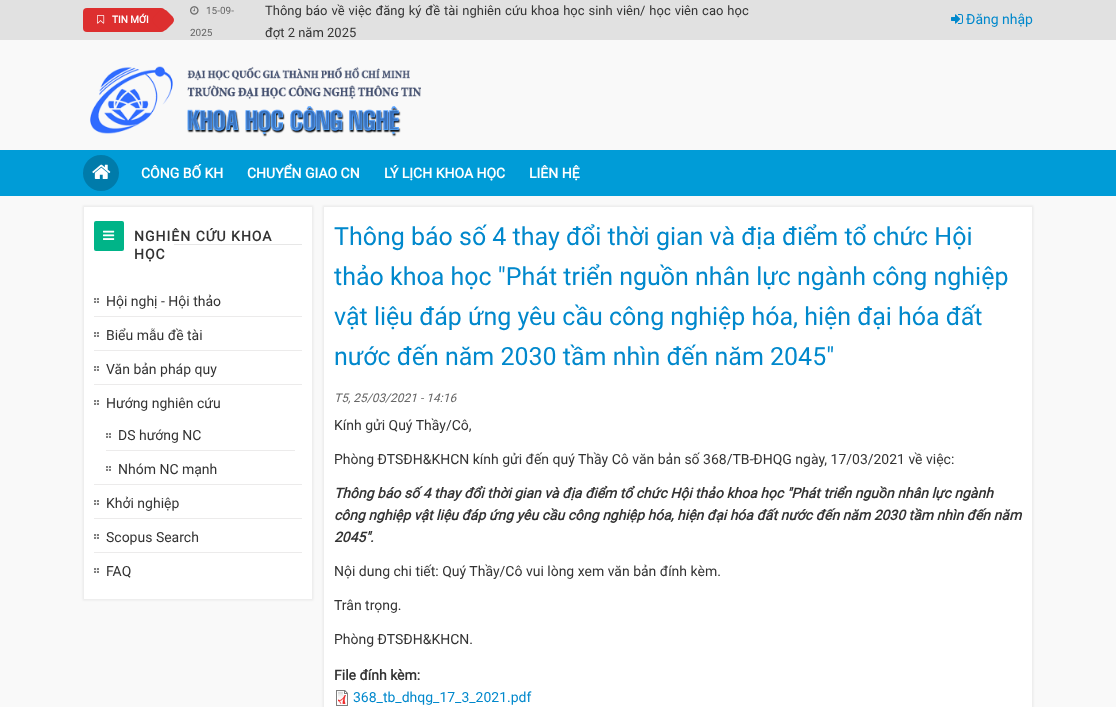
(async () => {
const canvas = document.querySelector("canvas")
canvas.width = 1116
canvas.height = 707
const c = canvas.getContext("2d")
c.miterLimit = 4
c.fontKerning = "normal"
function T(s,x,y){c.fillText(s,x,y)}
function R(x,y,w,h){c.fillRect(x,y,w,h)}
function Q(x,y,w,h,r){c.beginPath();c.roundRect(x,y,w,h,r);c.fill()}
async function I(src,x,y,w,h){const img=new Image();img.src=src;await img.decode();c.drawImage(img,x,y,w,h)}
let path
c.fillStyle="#f9f9f9"
R(0,0,1116,707)
c.fillStyle="#e1e1e1"
R(0,0,1116,40)
c.fillStyle="#dd2f2f"
Q(83,8,82,24,4)
await I("1.png",97,15,8,9)
c.font="bold 10px Roboto"
c.fillStyle="#fff"
T("TIN MỚI",112,23)
c.fillStyle="#dd2f2f"
path = new Path2D("M167 11l5.5 5.5c2 2 2 5 0 7l-5.5 5.5c-2 2-5.5 2-7.5 0l-5.5-5.5c-2-2-2-5 0-7l5.5-5.5c2-2 5.5-2 7.5 0z")
c.fill(path)
await I("2.png",190,6,9,9)
c.font="10px Roboto"
c.fillStyle="#666"
T("15-09-",206,14)
T("2025",190,36)
c.wordSpacing="0.7px"
c.font="13px Roboto"
c.fillStyle="#333"
T("Thông báo về việc đăng ký đề tài nghiên cứu khoa học sinh viên/ học viên cao học",265,15)
c.wordSpacing="0px"
T("đợt 2 năm 2025",265,37)
await I("3.png",951,14,12,10)
c.font="14px Roboto"
c.fillStyle="#08c"
T("Đăng nhập",966,24)
await I("4.png",90,66,331,71)
c.fillStyle="#009cd7"
R(0,150,1116,46)
c.fillStyle="#007baa"
c.beginPath()
c.arc(101,173,18,0,7)
c.fill()
await I("5.png",92,164,19,15)
c.font="bold 14px Roboto"
c.fillStyle="#fff"
T("CÔNG BỐ KH",141,178)
T("CHUYỂN GIAO CN",247,178)
T("LÝ LỊCH KHOA HỌC",384,178)
T("LIÊN HỆ",529,178)
c.fillStyle="#e3e3e3"
c.filter="blur(1px)"
c.beginPath()
c.rect(83,206,230,394)
c.fill()
c.filter="none"
c.fillStyle="#fff"
c.beginPath()
c.rect(83.5,206.5,229,393)
c.fill()
c.strokeStyle="#eee"
c.stroke()
c.fillStyle="#00b488"
Q(94,221,30,30,2)
await I("6.png",103,230,12,10)
c.letterSpacing="1px"
c.fillStyle="#333"
T("NGHIÊN CỨU KHOA",134,241)
c.fillStyle="#e7e7e7"
R(174,244,128,1)
c.fillStyle="#333"
T("HỌC",134,259)
await I("7.png",94,298,5,5)
c.fillStyle="#ecebeb"
R(94,316,208,1)
c.letterSpacing="0px"
c.font="14px Roboto"
c.fillStyle="#333"
T("Hội nghị - Hội thảo",106,306)
await I("7.png",94,332,5,5)
c.fillStyle="#ecebeb"
R(94,350,208,1)
c.fillStyle="#333"
T("Biểu mẫu đề tài",106,340)
await I("7.png",94,366,5,5)
c.fillStyle="#ecebeb"
R(94,384,208,1)
c.fillStyle="#333"
T("Văn bản pháp quy",106,374)
await I("7.png",94,400,5,5)
c.fillStyle="#ecebeb"
R(94,484,208,1)
c.fillStyle="#333"
T("Hướng nghiên cứu",106,408)
await I("7.png",106,433,5,5)
c.fillStyle="#ecebeb"
R(106,450,189,1)
c.fillStyle="#333"
T("DS hướng NC",118,440)
await I("7.png",106,466,5,5)
T("Nhóm NC mạnh",118,474)
await I("7.png",94,500,5,5)
c.fillStyle="#ecebeb"
R(94,518,208,1)
c.fillStyle="#333"
T("Khởi nghiệp",106,508)
await I("7.png",94,534,5,5)
c.fillStyle="#ecebeb"
R(94,552,208,1)
c.fillStyle="#333"
T("Scopus Search",106,542)
await I("7.png",94,568,5,5)
T("FAQ",106,576)
c.fillStyle="#e3e3e3"
c.filter="blur(1px)"
c.beginPath()
c.rect(323,206,710,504)
c.fill()
c.filter="none"
c.fillStyle="#fff"
c.beginPath()
c.rect(323.5,206.5,709,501)
c.fill()
c.stroke()
c.font="25px Roboto"
c.fillStyle="#08c"
T("Thông báo số 4 thay đổi thời gian và địa điểm tổ chức Hội",334,245)
T("thảo khoa học \"Phát triển nguồn nhân lực ngành công nghiệp",334,285)
T("vật liệu đáp ứng yêu cầu công nghiệp hóa, hiện đại hóa đất",334,325)
T("nước đến năm 2030 tầm nhìn đến năm 2045\"",334,365)
c.font="italic 12px Roboto"
c.fillStyle="#666"
T("T5, 25/03/2021 - 14:16",334,402)
c.font="14px Roboto"
c.fillStyle="#333"
T("Kính gửi Quý Thầy/Cô,",334,430)
T("Phòng ĐTSĐH&KHCN kính gửi đến quý Thầy Cô văn bản số 368/TB-ĐHQG ngày, 17/03/2021 về việc:",334,464)
c.font="italic bold 14px Roboto"
T("Thông báo số 4 thay đổi thời gian và địa điểm tổ chức Hội thảo khoa học \"Phát triển nguồn nhân lực ngành",334,498)
T("công nghiệp vật liệu đáp ứng yêu cầu công nghiệp hóa, hiện đại hóa đất nước đến năm 2030 tầm nhìn đến năm",334,520)
T("2045\".",334,542)
c.font="14px Roboto"
T("Nội dung chi tiết: Quý Thầy/Cô vui lòng xem văn bản đính kèm.",334,576)
T("Trân trọng.",334,610)
T("Phòng ĐTSĐH&KHCN.",334,644)
c.font="bold 14px Roboto"
T("File đính kèm:",334,680)
await I("8.png",336,690,12,16)
c.font="14px Roboto"
c.fillStyle="#08c"
T("368_tb_dhqg_17_3_2021.pdf",353,702)
})()
